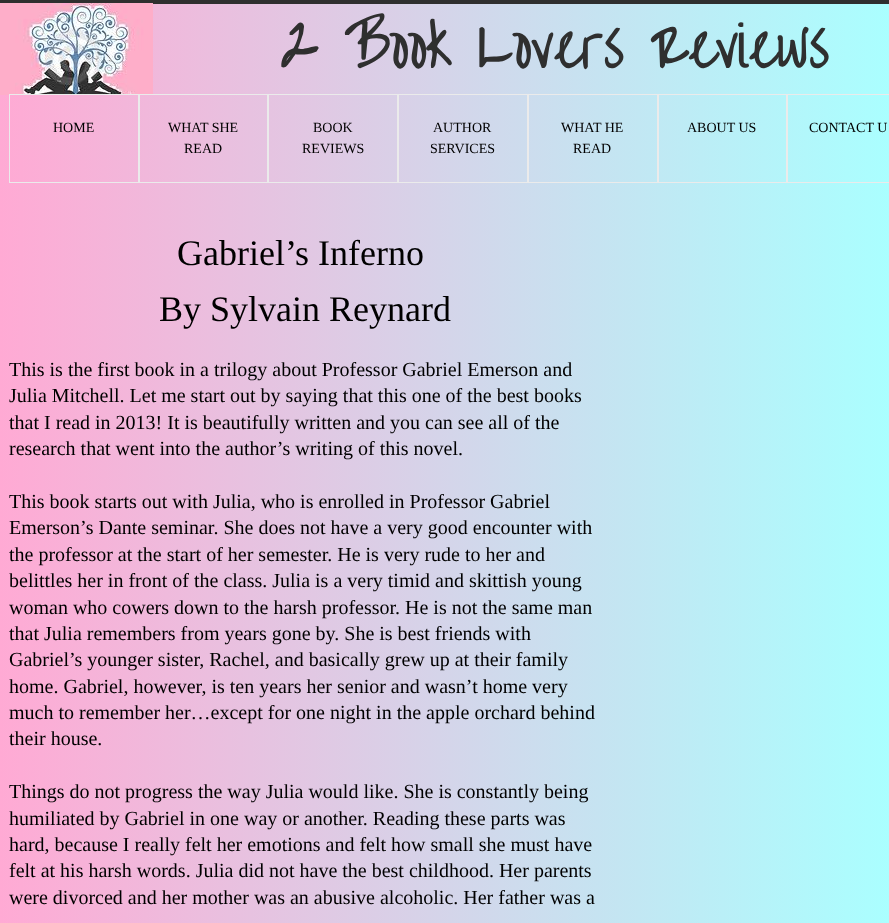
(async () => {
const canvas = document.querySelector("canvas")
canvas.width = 889
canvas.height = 923
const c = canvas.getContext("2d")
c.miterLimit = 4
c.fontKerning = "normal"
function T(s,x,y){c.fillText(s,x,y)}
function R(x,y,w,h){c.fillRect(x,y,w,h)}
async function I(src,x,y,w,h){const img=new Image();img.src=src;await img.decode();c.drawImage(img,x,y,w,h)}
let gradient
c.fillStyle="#fff"
R(0,0,889,923)
gradient = c.createLinearGradient(0,462,889,462)
gradient.addColorStop(0,"#ffaad4")
gradient.addColorStop(1,"#aff")
c.fillStyle = gradient
R(0,4,889,919)
c.fillStyle="#2f2f2f"
R(0,0,889,4)
await I("1.png",0,3,153,92)
c.font="bold 54px Over the Rainbow"
T("2 Book Lovers Reviews",280,68)
c.strokeStyle="#ebebeb"
c.strokeRect(9.5,94.5,129,88)
c.font="14px Liberation Serif"
c.fillStyle="#000"
T("HOME",53,132)
c.strokeRect(139.5,94.5,128,88)
T("WHAT SHE",168,132)
T("READ",184,153)
c.strokeRect(268.5,94.5,129,88)
T("BOOK",313,132)
T("REVIEWS",302,153)
c.strokeRect(398.5,94.5,129,88)
T("AUTHOR",433,132)
T("SERVICES",430,153)
c.strokeRect(528.5,94.5,129,88)
T("WHAT HE",561,132)
T("READ",573,153)
c.strokeRect(658.5,94.5,128,88)
T("ABOUT US",687,132)
c.strokeRect(787.5,94.5,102,88)
T("CONTACT U",809,132)
c.font="36px Liberation Serif"
T("Gabriel’s Inferno",177,265)
T("By Sylvain Reynard",159,321)
c.font="20px Liberation Serif"
T("This is the first book in a trilogy about Professor Gabriel Emerson and",9,376)
T("Julia Mitchell. Let me start out by saying that this one of the best books",9,402)
T("that I read in 2013! It is beautifully written and you can see all of the",9,429)
T("research that went into the author’s writing of this novel.",9,455)
T("This book starts out with Julia, who is enrolled in Professor Gabriel",9,508)
T("Emerson’s Dante seminar. She does not have a very good encounter with",9,534)
T("the professor at the start of her semester. He is very rude to her and",9,561)
T("belittles her in front of the class. Julia is a very timid and skittish young",9,587)
T("woman who cowers down to the harsh professor. He is not the same man",9,614)
T("that Julia remembers from years gone by. She is best friends with",9,640)
T("Gabriel’s younger sister, Rachel, and basically grew up at their family",9,666)
T("home. Gabriel, however, is ten years her senior and wasn’t home very",9,693)
T("much to remember her…except for one night in the apple orchard behind",9,719)
T("their house.",9,745)
T("Things do not progress the way Julia would like. She is constantly being",9,798)
T("humiliated by Gabriel in one way or another. Reading these parts was",9,825)
T("hard, because I really felt her emotions and felt how small she must have",9,851)
T("felt at his harsh words. Julia did not have the best childhood. Her parents",9,877)
T("were divorced and her mother was an abusive alcoholic. Her father was a",9,904)
})()
